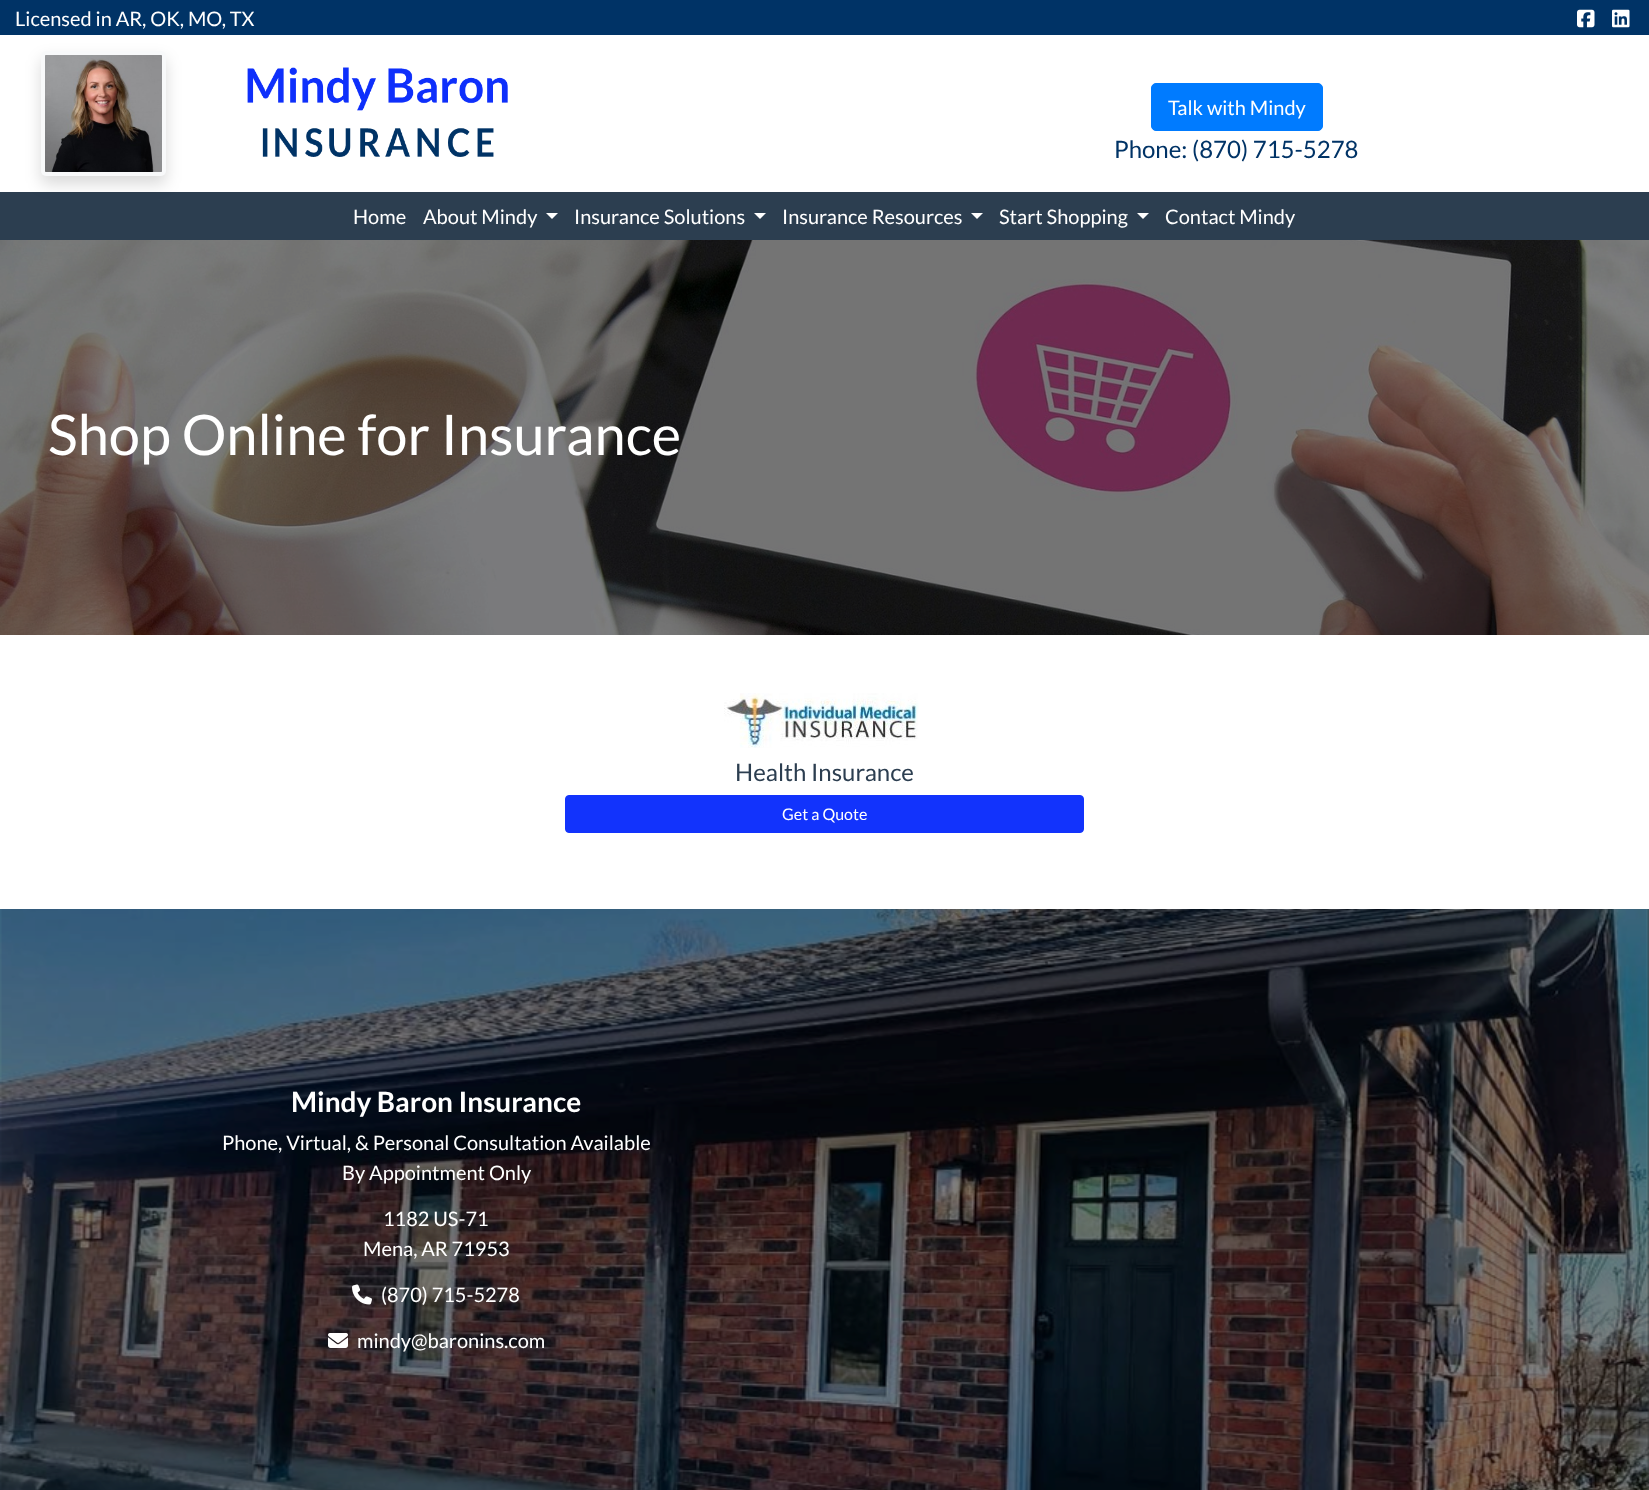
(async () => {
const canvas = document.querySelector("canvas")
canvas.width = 1649
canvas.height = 1490
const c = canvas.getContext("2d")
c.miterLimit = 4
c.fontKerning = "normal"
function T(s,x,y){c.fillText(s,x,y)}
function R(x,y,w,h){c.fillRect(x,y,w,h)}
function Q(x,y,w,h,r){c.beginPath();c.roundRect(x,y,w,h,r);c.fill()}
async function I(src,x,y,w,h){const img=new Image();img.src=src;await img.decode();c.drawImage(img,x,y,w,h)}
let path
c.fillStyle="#fff"
R(0,0,1649,1490)
c.fillStyle="#036"
R(0,0,1649,35)
c.font="20px Lato"
c.fillStyle="#fff"
T("Licensed in AR, OK, MO, TX",15,26)
await I("1.png",1577,9,18,19)
await I("2.png",1612,9,18,19)
c.fillStyle="#2c3e50"
R(0,192,1649,48)
c.fillStyle="#00000026"
c.filter="blur(8px)"
c.beginPath()
c.roundRect(41,59,125,125,5)
c.fill()
c.filter="none"
c.fillStyle="#f8f9fa"
Q(41,51,125,125,5)
await I("3.png",45,55,117,117)
await I("4.png",247,67,261,90)
c.fillStyle="#007bff"
c.beginPath()
c.roundRect(1151.5,83.5,171,47,4.5)
c.fill()
c.strokeStyle="#007bff"
c.stroke()
c.fillStyle="#fff"
T("Talk with Mindy",1168,115)
c.font="24px Lato"
c.fillStyle="#036"
T("Phone: (870) 715-5278",1114,158)
c.font="20px Lato"
c.fillStyle="#fff"
T("Home",353,224)
T("About Mindy",423,224)
path = new Path2D("M546 213h12l-6 6z")
c.fill(path)
T("Insurance Solutions",574,224)
path = new Path2D("M754 213h12l-6 6z")
c.fill(path)
T("Insurance Resources",782,224)
path = new Path2D("M971 213h12l-6 6z")
c.fill(path)
T("Start Shopping",999,224)
path = new Path2D("M1137 213h12l-6 6z")
c.fill(path)
T("Contact Mindy",1165,224)
await I("5.png",0,240,1649,395)
c.font="56px Lato"
T("Shop Online for Insurance",48,455)
await I("6.png",724,693,195,55)
c.font="24px Lato"
c.fillStyle="#2c3e50"
T("Health Insurance",735,781)
c.fillStyle="#1233fc"
c.beginPath()
c.roundRect(565.5,795.5,518,37,3.5)
c.fill()
c.strokeStyle="#1233fc"
c.stroke()
c.font="16px Lato"
c.fillStyle="#fff"
T("Get a Quote",782,820)
c.fillStyle="#404040"
R(1647,909,2,581)
await I("7.png",0,909,1649,581)
c.font="bold 28px Lato"
c.fillStyle="#fff"
T("Mindy Baron Insurance",291,1112)
c.font="20px Lato"
T("Phone, Virtual, & Personal Consultation Available",222,1150)
T("By Appointment Only",342,1180)
T("1182 US-71",383,1226)
T("Mena, AR 71953",363,1256)
await I("8.png",352,1284,20,21)
T("(870) 715-5278",381,1302)
await I("9.png",328,1333,20,15)
T("mindy@baronins.com",357,1348)
})()
